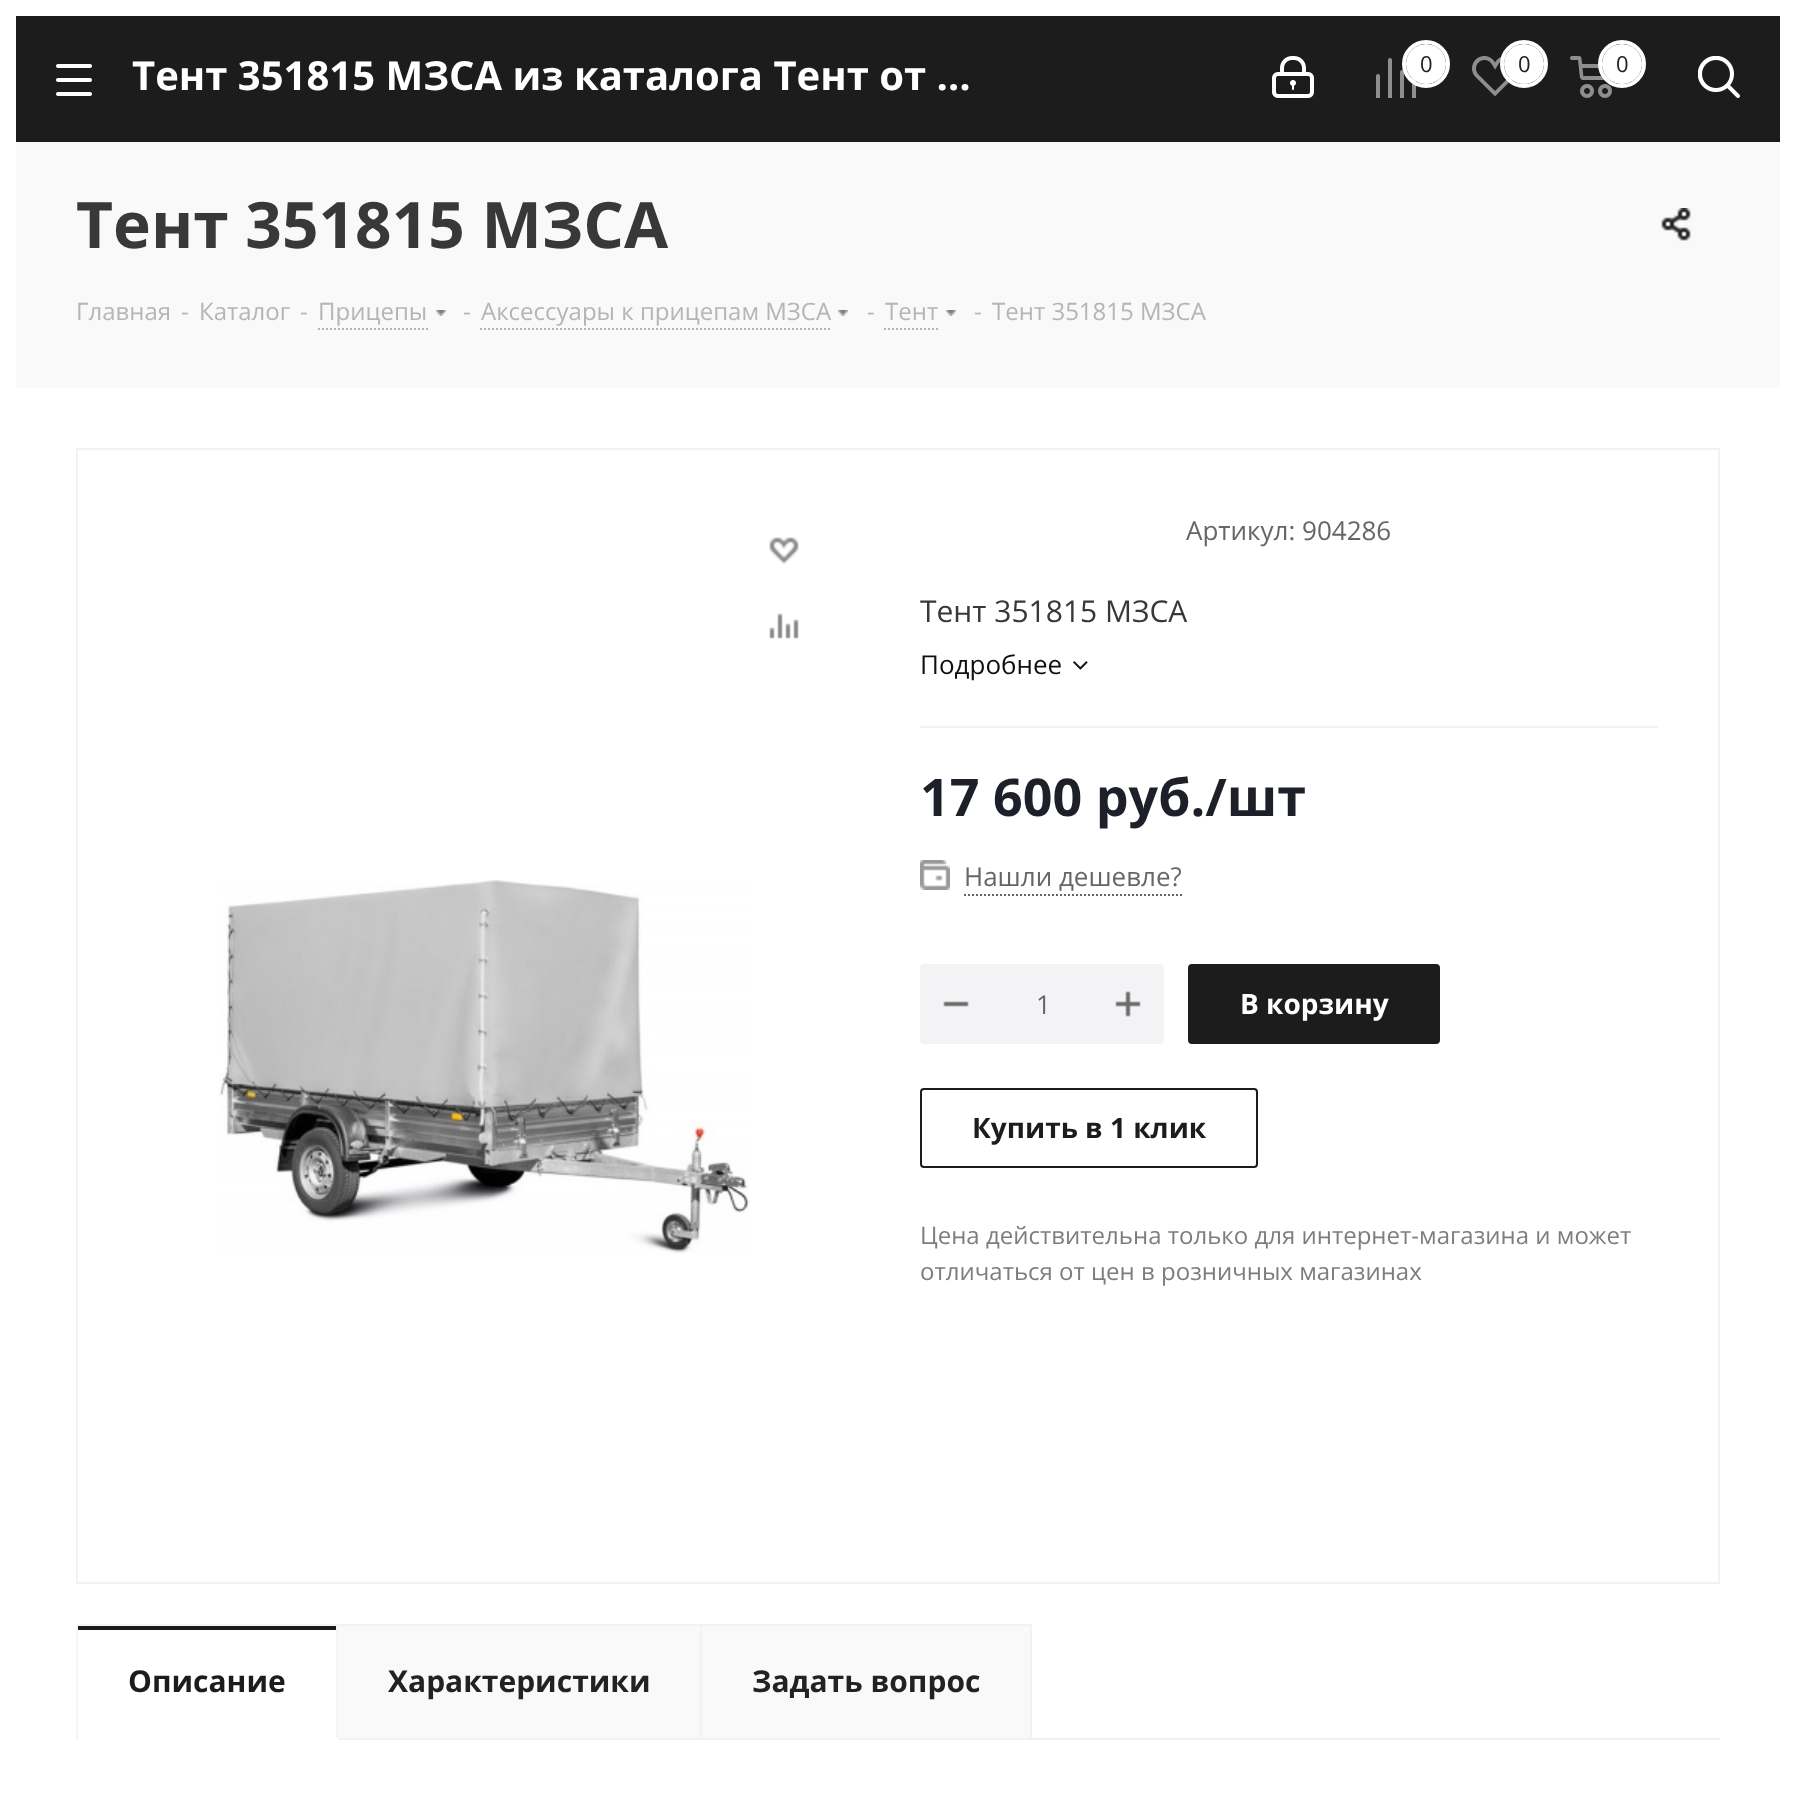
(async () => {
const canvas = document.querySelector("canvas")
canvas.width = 1796
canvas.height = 1820
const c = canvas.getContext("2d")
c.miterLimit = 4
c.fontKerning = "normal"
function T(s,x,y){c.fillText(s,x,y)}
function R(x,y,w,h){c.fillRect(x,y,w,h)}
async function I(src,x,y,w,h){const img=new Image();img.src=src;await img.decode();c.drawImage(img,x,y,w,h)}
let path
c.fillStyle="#fff"
R(0,0,1796,1820)
c.fillStyle="#1c1c1c"
R(16,16,1764,126)
await I("1.png",56,64,36,32)
c.font="bold 40px Open Sans"
c.fillStyle="#fff"
T("Тент 351815 МЗСА из каталога Тент от …",132,90)
await I("2.png",1272,56,42,42)
await I("3.png",1376,58,40,40)
c.beginPath()
c.arc(1426,64,22,0,7)
c.strokeStyle="#fff"
c.lineWidth=4
c.stroke()
c.beginPath()
c.arc(1426,64,20,0,7)
c.fill()
c.font="22px Open Sans"
c.fillStyle="#222"
T("0",1420,72)
await I("4.png",1472,56,40,40)
c.beginPath()
c.arc(1524,64,22,0,7)
c.stroke()
c.fillStyle="#fff"
c.beginPath()
c.arc(1524,64,20,0,7)
c.fill()
c.fillStyle="#222"
T("0",1518,72)
await I("5.png",1570,56,42,42)
c.beginPath()
c.arc(1622,64,22,0,7)
c.stroke()
c.fillStyle="#fff"
c.beginPath()
c.arc(1622,64,20,0,7)
c.fill()
c.fillStyle="#222"
T("0",1616,72)
await I("6.png",1698,56,42,42)
c.fillStyle="#f9f9f9"
R(16,142,1764,246)
c.font="bold 64px Open Sans"
c.fillStyle="#383838"
T("Тент 351815 МЗСА",76,248)
await I("7.png",1661,208,30,33)
c.font="24px Open Sans"
c.fillStyle="#b6b5b5"
T("Главная",76,320)
T("-",181,320)
T("Каталог",199,320)
T("-",300,320)
T("Прицепы",318,320)
path = new Path2D("M318 329h110")
c.strokeStyle="#b4b4b4"
c.lineWidth=2
c.setLineDash([2,2])
c.stroke(path)
await I("8.png",436,310,10,6)
T("-",463,320)
T("Аксессуары к прицепам МЗСА",481,320)
path = new Path2D("M480 329h350")
c.stroke(path)
await I("8.png",838,310,10,6)
T("-",867,320)
T("Тент",885,320)
path = new Path2D("M884 329h54")
c.stroke(path)
await I("8.png",946,310,10,6)
T("-",974,320)
T("Тент 351815 МЗСА",992,320)
c.strokeStyle="#f2f2f2"
c.setLineDash([])
c.strokeRect(77,449,1642,1134)
await I("9.png",769,537,30,28)
await I("10.png",769,613,30,26)
await I("11.png",219,880,530,374)
c.fillStyle="#f2f2f2"
R(920,726,738,2)
c.font="26px Open Sans"
c.fillStyle="#666"
T("Артикул: 904286",1186,540)
c.font="30px Open Sans"
c.fillStyle="#383838"
T("Тент 351815 МЗСА",920,622)
c.font="26px Open Sans"
c.fillStyle="#0f0f0f"
T("Подробнее",920,674)
await I("12.png",1073,661,15,9)
c.font="bold 52px Open Sans"
c.fillStyle="#1d2029"
T("17 600 руб./шт",920,816)
await I("13.png",920,860,30,30)
c.font="26px Open Sans"
c.fillStyle="#666"
T("Нашли дешевле?",964,886)
path = new Path2D("M964 895h218")
c.strokeStyle="#666"
c.setLineDash([2,2])
c.stroke(path)
c.fillStyle="#f3f3f5"
c.beginPath()
c.roundRect(921,965,242,78,3)
c.fill()
c.strokeStyle="#f3f3f5"
c.setLineDash([])
c.stroke()
await I("14.png",943,1001,26,6)
c.fillStyle="#666"
T("1",1036,1014)
await I("15.png",1115,991,26,26)
c.fillStyle="#1c1c1c"
c.beginPath()
c.roundRect(1189,965,250,78,3)
c.fill()
c.strokeStyle="#1c1c1c"
c.stroke()
c.font="bold 28px Open Sans"
c.fillStyle="#fff"
T("В корзину",1240,1014)
c.beginPath()
c.roundRect(921,1089,336,78,3)
c.stroke()
c.fillStyle="#1c1c1c"
T("Купить в 1 клик",972,1138)
c.font="24px Open Sans"
c.fillStyle="#7d7d7d"
T("Цена действительна только для интернет-магазина и может",920,1244)
T("отличаться от цен в розничных магазинах",920,1280)
c.fillStyle="#f2f2f2"
R(1032,1738,688,2)
c.fillStyle="#f9f9fa"
c.beginPath()
c.rect(337,1625,364,114)
c.fill()
c.strokeStyle="#f2f2f2"
c.stroke()
c.fillStyle="#f5f5f5"
R(76,1624,262,2)
R(336,1624,2,116)
c.fillStyle="#fff"
R(336,1738,2,2)
c.fillStyle="#f5f5f5"
R(76,1624,2,116)
c.fillStyle="#1c1c1c"
R(78,1626,258,4)
c.font="bold 30px Open Sans"
T("Описание",128,1692)
c.fillStyle="#222"
T("Характеристики",388,1692)
c.fillStyle="#f9f9fa"
c.beginPath()
c.rect(701,1625,330,114)
c.fill()
c.stroke()
c.fillStyle="#222"
T("Задать вопрос",752,1692)
})()
